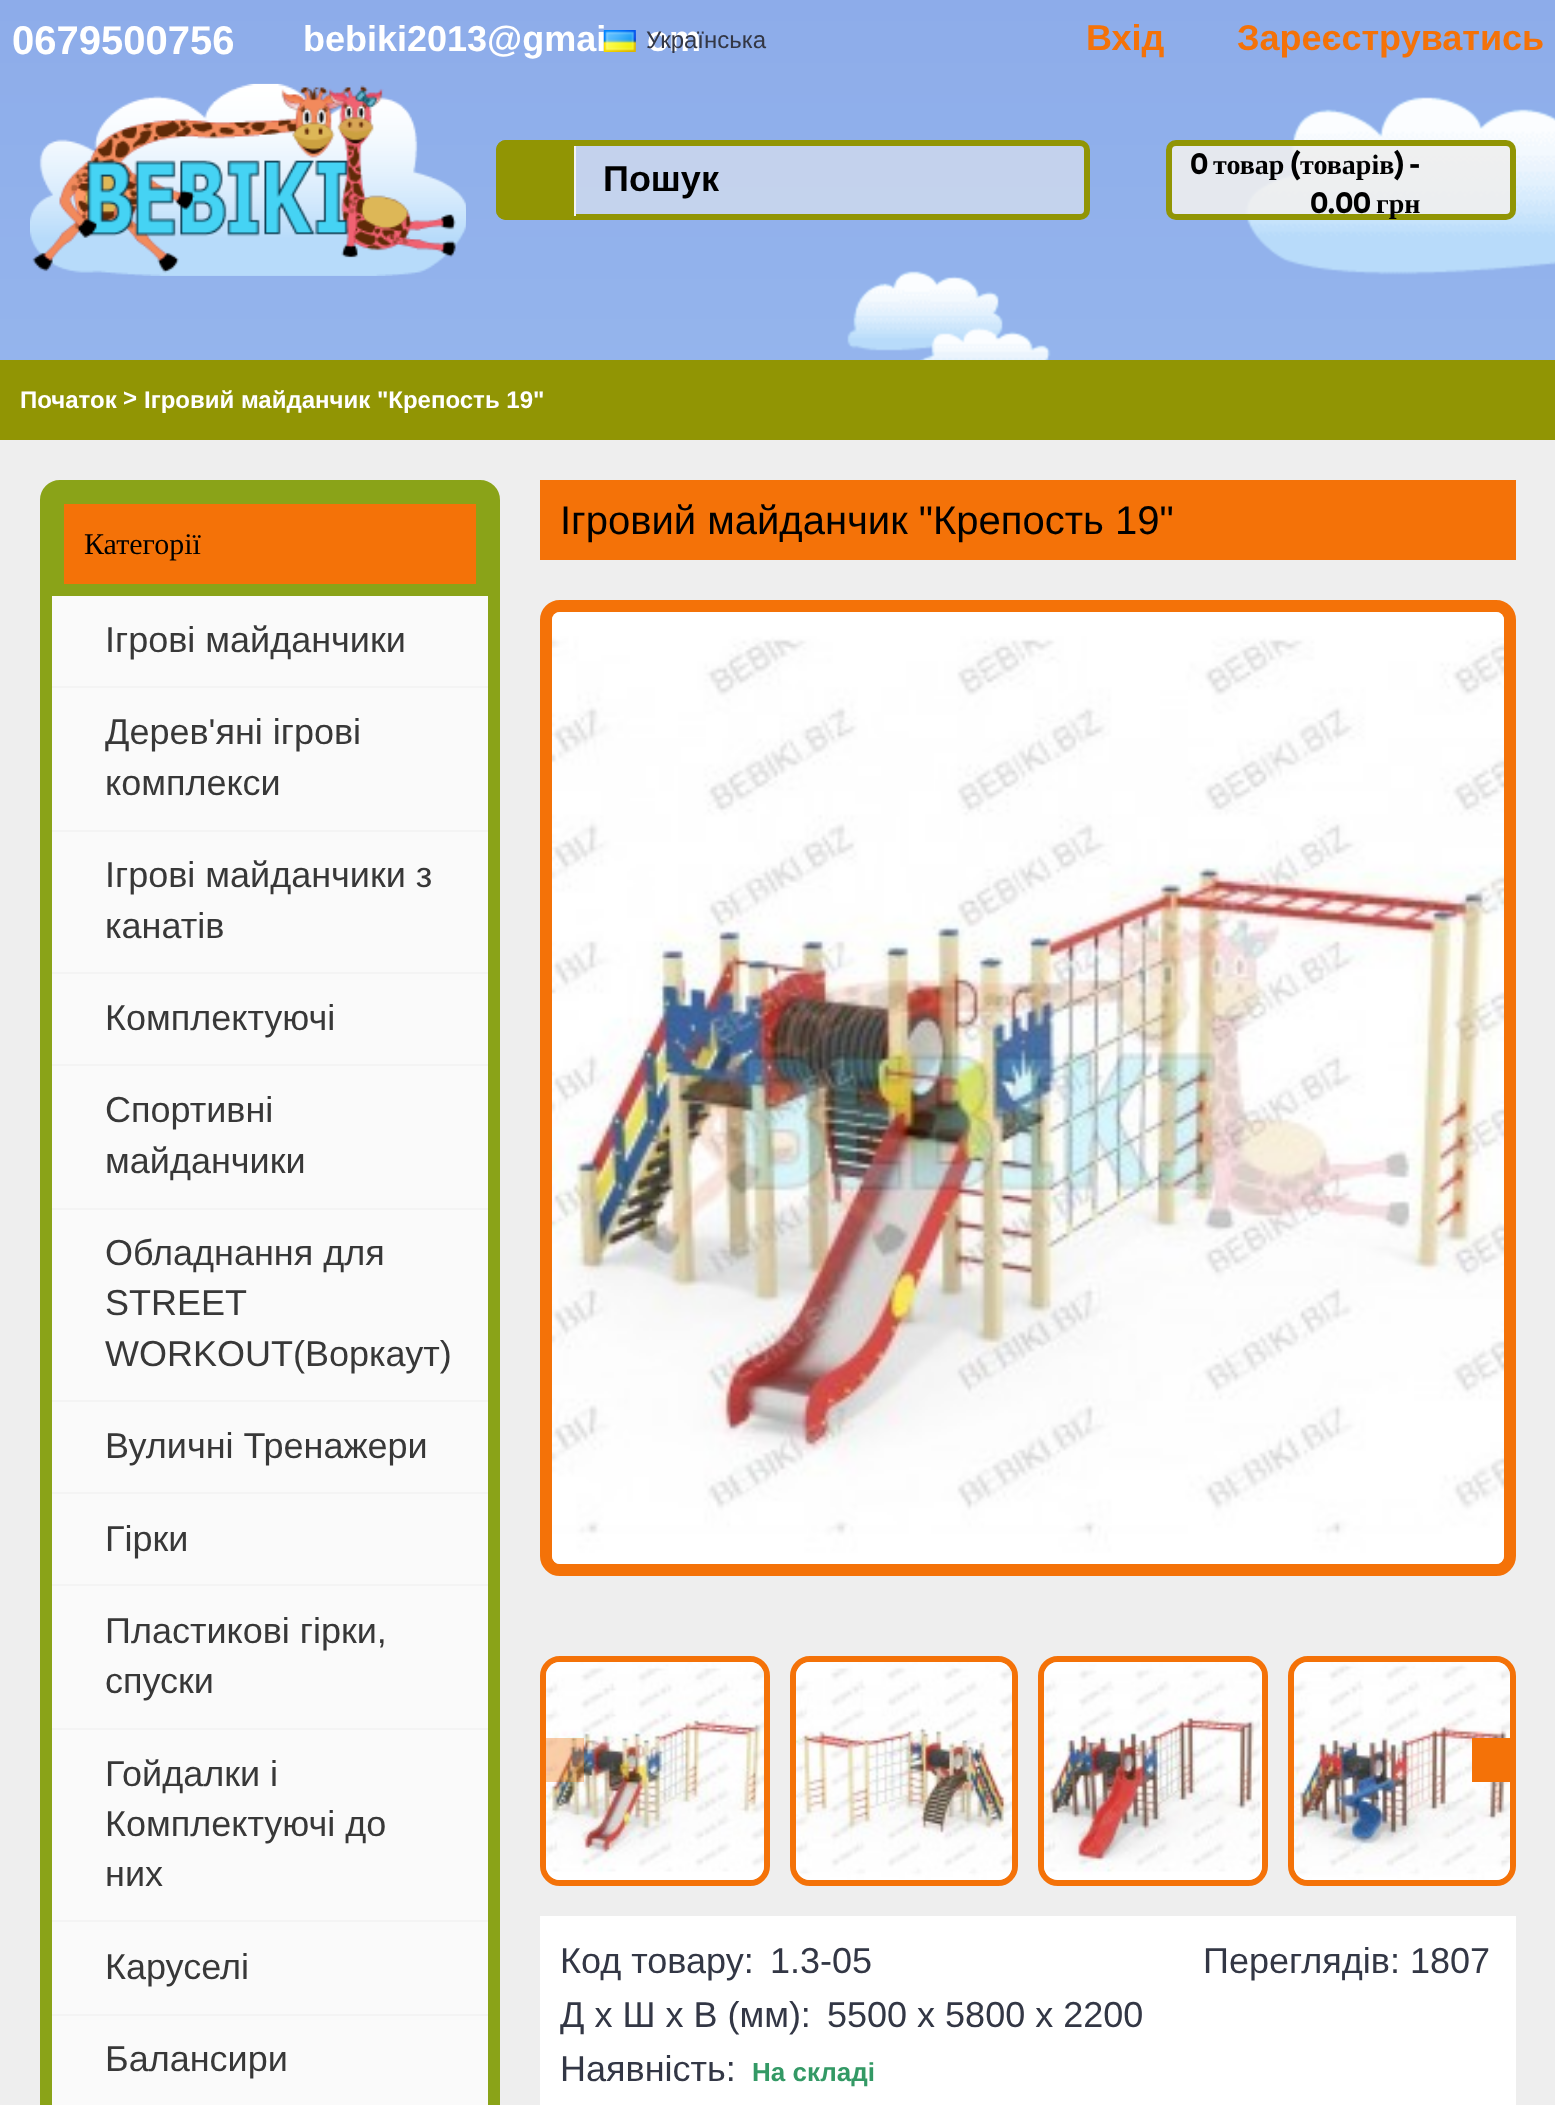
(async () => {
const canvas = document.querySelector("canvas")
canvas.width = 1555
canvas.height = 2105
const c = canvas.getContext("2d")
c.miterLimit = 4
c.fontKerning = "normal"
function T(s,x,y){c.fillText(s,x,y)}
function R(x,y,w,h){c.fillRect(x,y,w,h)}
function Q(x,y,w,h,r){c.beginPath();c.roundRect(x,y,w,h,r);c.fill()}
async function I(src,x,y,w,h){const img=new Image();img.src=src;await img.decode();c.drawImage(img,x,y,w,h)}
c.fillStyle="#fff"
R(0,0,1555,2105)
await I("1.png",0,0,1555,360)
c.font="bold 40px Liberation Sans"
T("0679500756",12,54)
c.font="bold 36px Liberation Sans"
T("bebiki2013@gmai",303,51)
T("om",647,51)
await I("2.png",603,30,33,22)
c.font="24px Liberation Sans"
c.fillStyle="#333745"
T("Українська",646,48)
c.font="bold 36px Liberation Sans"
c.fillStyle="#f47208"
T("Вхід",1086,50)
T("Зареєструватись",1237,50)
await I("3.png",30,83,436,193)
c.fillStyle="#eeeeee8c"
c.beginPath()
c.roundRect(499,143,588,74,7)
c.fill()
c.strokeStyle="#919504"
c.lineWidth=6
c.stroke()
c.fillStyle="#919504"
Q(496,140,80,80,10)
c.fillStyle="#f4f4f4"
R(574,146,2,70)
c.fillStyle="#000"
T("Пошук",603,191)
c.fillStyle="#eeeeeee6"
c.beginPath()
c.roundRect(1169,143,344,74,7)
c.fill()
c.stroke()
c.font="bold 28px Arvo"
c.fillStyle="#000"
T("0",1190,174)
c.font="bold 28px Liberation Serif"
T("товар",1213,174)
c.font="bold 28px Arvo"
T("(",1290,174)
c.font="bold 28px Liberation Serif"
T("товарів",1300,174)
c.font="bold 28px Arvo"
T(") -",1394,174)
T("0.00",1310,213)
c.font="bold 28px Liberation Serif"
T("грн",1376,213)
c.fillStyle="#eee"
R(0,440,1555,1665)
c.fillStyle="#919504"
R(0,360,1555,80)
c.font="bold 24px Liberation Sans"
c.fillStyle="#fff"
T("Початок",20,408)
T(">",123,406)
T("Ігровий майданчик \"Крепость 19\"",144,408)
c.fillStyle="#fafafa"
c.beginPath()
c.roundRect(46,486,448,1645,14)
c.fill()
c.strokeStyle="#8aa318"
c.lineWidth=12
c.stroke()
c.fillStyle="#f47208"
c.beginPath()
c.rect(58,498,424,92)
c.fill()
c.stroke()
c.font="30px Liberation Serif"
c.fillStyle="#000"
T("Категорії",84,554)
c.fillStyle="#f4f4f4"
R(52,686,436,2)
c.font="36px Liberation Sans"
c.fillStyle="#383838"
T("Ігрові майданчики",105,652)
c.fillStyle="#f4f4f4"
R(52,830,436,2)
c.fillStyle="#383838"
T("Дерев'яні ігрові",105,744)
T("комплекси",105,795)
c.fillStyle="#f4f4f4"
R(52,972,436,2)
c.fillStyle="#383838"
T("Ігрові майданчики з",105,887)
T("канатів",105,938)
c.fillStyle="#f4f4f4"
R(52,1064,436,2)
c.fillStyle="#383838"
T("Комплектуючі",105,1030)
c.fillStyle="#f4f4f4"
R(52,1208,436,2)
c.fillStyle="#383838"
T("Спортивні",105,1122)
T("майданчики",105,1173)
c.fillStyle="#f4f4f4"
R(52,1400,436,2)
c.fillStyle="#383838"
T("Обладнання для",105,1265)
T("STREET",105,1315)
T("WORKOUT(Воркаут)",105,1366)
c.fillStyle="#f4f4f4"
R(52,1492,436,2)
c.fillStyle="#383838"
T("Вуличні Тренажери",105,1458)
c.fillStyle="#f4f4f4"
R(52,1584,436,2)
c.fillStyle="#383838"
T("Гірки",105,1551)
c.fillStyle="#f4f4f4"
R(52,1728,436,2)
c.fillStyle="#383838"
T("Пластикові гірки,",105,1643)
T("спуски",105,1693)
c.fillStyle="#f4f4f4"
R(52,1920,436,2)
c.fillStyle="#383838"
T("Гойдалки і",105,1786)
T("Комплектуючі до",105,1836)
T("них",105,1886)
c.fillStyle="#f4f4f4"
R(52,2014,436,2)
c.fillStyle="#383838"
T("Каруселі",105,1979)
T("Балансири",105,2071)
c.fillStyle="#f47208"
R(540,480,976,80)
c.font="40px Liberation Sans"
c.fillStyle="#000"
T("Ігровий майданчик \"Крепость 19\"",560,534)
c.beginPath()
c.roundRect(546,606,964,964,14)
c.strokeStyle="#f47208"
c.stroke()
await I("4.png",552,612,952,952)
c.beginPath()
c.roundRect(543,1659,224,224,17)
c.lineWidth=6
c.stroke()
await I("5.png",546,1662,218,218)
c.beginPath()
c.roundRect(793,1659,222,224,17)
c.stroke()
await I("6.png",796,1662,216,218)
c.beginPath()
c.roundRect(1041,1659,224,224,17)
c.stroke()
await I("7.png",1044,1662,218,218)
c.beginPath()
c.roundRect(1291,1659,222,224,17)
c.stroke()
await I("8.png",1294,1662,216,218)
c.fillStyle="#f4720859"
R(546,1738,38,44)
c.fillStyle="#f47208"
R(1472,1738,38,44)
c.fillStyle="#fff"
R(540,1916,976,189)
c.font="36px Liberation Sans"
c.fillStyle="#333745"
T("Код товару:",560,1973)
T("1.3-05",770,1973)
T("Переглядів: 1807",1203,1973)
T("Д x Ш x В (мм):",560,2027)
T("5500 x 5800 x 2200",827,2027)
T("Наявність:",560,2081)
c.font="bold 26px Liberation Sans"
c.fillStyle="#339965"
T("На складі",752,2081)
})()
